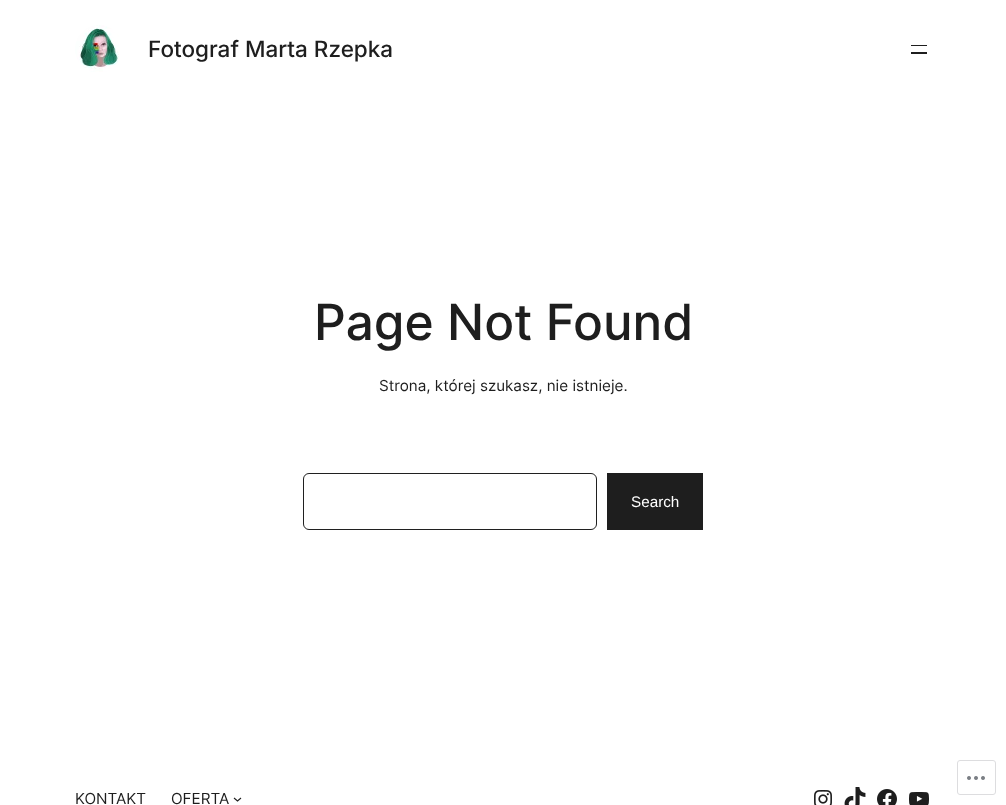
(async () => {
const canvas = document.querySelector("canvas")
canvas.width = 1006
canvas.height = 805
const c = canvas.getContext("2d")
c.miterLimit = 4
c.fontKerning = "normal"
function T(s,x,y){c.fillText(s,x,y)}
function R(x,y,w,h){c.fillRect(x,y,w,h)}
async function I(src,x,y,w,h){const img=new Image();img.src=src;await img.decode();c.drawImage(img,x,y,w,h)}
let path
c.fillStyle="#fff"
R(0,0,1006,805)
await I("1.png",75,25,44,47)
c.font="500 22.5px Inter"
c.fillStyle="#1e1e1e"
T("Fotograf Marta Rzepka",148,57)
R(911,45,16,1)
R(911,52,16,2)
c.font="500 49.75px 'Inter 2'"
T("Page Not Found",314,340)
c.font="15.25px Inter"
T("Strona, której szukasz, nie istnieje.",379,391)
c.beginPath()
c.roundRect(303.5,473.5,293,56,5.5)
c.strokeStyle="#202020"
c.stroke()
R(607,473,96,57)
c.font="15.25px Liberation Sans"
c.fillStyle="#fff"
T("Search",631,507)
c.font="15.25px Inter"
c.fillStyle="#1e1e1e"
T("KONTAKT",75,804)
T("OFERTA",171,804)
path = new Path2D("M234 798l3.5 3l3.5-3")
c.strokeStyle="#1e1e1e"
c.lineWidth=1.1
c.stroke(path)
await I("2.png",814,790,18,15)
await I("3.png",844,787,22,18)
await I("4.png",877,789,20,16)
await I("5.png",909,792,20,13)
c.beginPath()
c.roundRect(957.5,760.5,38,34,2.5)
c.strokeStyle="#dddddf"
c.lineWidth=1
c.stroke()
await I("6.png",967,776,18,4)
})()
